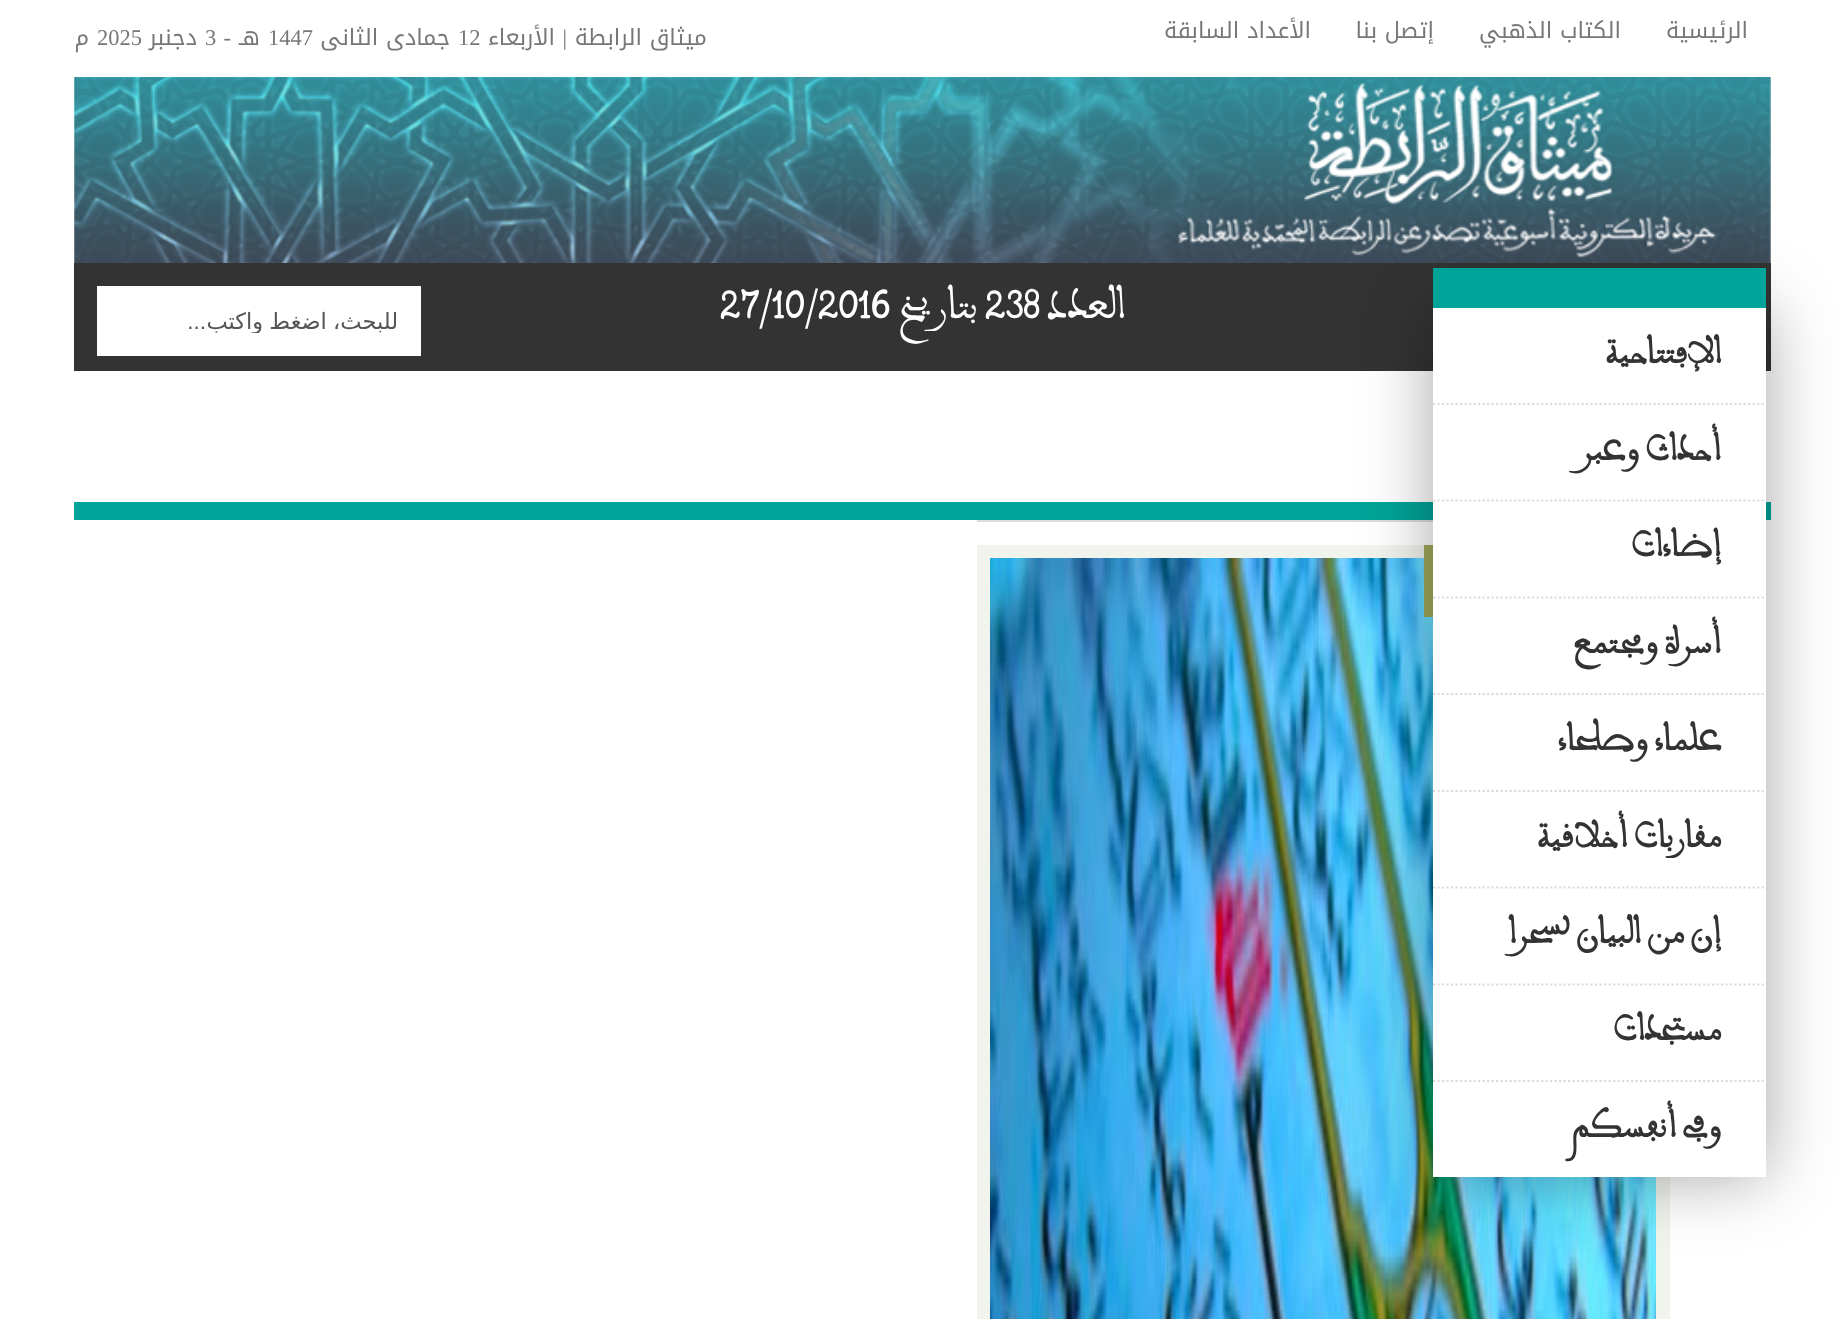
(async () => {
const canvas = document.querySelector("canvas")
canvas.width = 1845
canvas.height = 1319
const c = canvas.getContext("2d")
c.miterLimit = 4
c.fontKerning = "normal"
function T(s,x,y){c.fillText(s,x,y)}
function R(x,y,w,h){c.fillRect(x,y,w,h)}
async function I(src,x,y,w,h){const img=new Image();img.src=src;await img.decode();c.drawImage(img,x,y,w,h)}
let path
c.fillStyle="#fff"
R(0,0,1845,1319)
c.direction="rtl"
c.font="22.5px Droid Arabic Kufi"
c.fillStyle="#777"
T("الرئيسية",1748,38)
T("الكتاب الذهبي",1621,38)
T("إتصل بنا",1434,38)
T("الأعداد السابقة",1311,38)
T("ميثاق الرابطة",707,45)
c.font="22.5px Liberation Serif"
T("|",567,45)
c.font="22.5px Droid Arabic Kufi"
T("الأربعاء",555,45)
c.direction="ltr"
c.font="22.5px Liberation Serif"
T("12",458,45)
c.direction="rtl"
c.font="22.5px Droid Arabic Kufi"
T("جمادى الثانى",450,45)
c.direction="ltr"
c.font="22.5px Liberation Serif"
T("1447",268,45)
c.direction="rtl"
c.font="22.5px Droid Arabic Kufi"
T("هـ",260,45)
c.font="22.5px Liberation Serif"
T("-",231,45)
c.direction="ltr"
T("3",205,45)
c.direction="rtl"
c.font="22.5px Droid Arabic Kufi"
T("دجنبر",197,45)
c.direction="ltr"
c.font="22.5px Liberation Serif"
T("2025",97,45)
c.direction="rtl"
c.font="22.5px Droid Arabic Kufi"
T("م",89,45)
await I("1.png",74,77,1697,186)
c.fillStyle="#333"
R(74,263,1697,108)
c.font="40.5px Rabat"
c.fillStyle="#fff"
T("العدد",1125,318)
c.direction="ltr"
T("238",985,318)
c.direction="rtl"
T("بتاريخ",977,318)
c.direction="ltr"
T("27/10/2016",720,318)
R(97,286,324,70)
c.save()
c.beginPath()
c.rect(119,308,279,25)
c.clip()
c.wordSpacing="-1px"
c.direction="rtl"
c.font="22.5px DejaVu Sans"
c.fillStyle="#555"
T("للبحث، اضغط واكتب",398,329)
c.restore()
c.direction="rtl"
c.font="22.5px Liberation Sans"
c.fillStyle="#555"
T("...",206,329)
c.fillStyle="#00a498"
R(74,502,1697,18)
c.fillStyle="#dcdcdc"
R(977,520,456,2)
c.fillStyle="#f1f4ed"
R(977,545,693,774)
await I("2.png",990,558,666,761)
c.fillStyle="#a1aa5d"
R(1424,545,9,72)
c.fillStyle="#00000059"
c.filter="blur(34px)"
c.beginPath()
c.rect(1433,308,333,869)
c.fill()
c.filter="none"
c.fillStyle="#00a498"
R(1433,268,333,40)
c.fillStyle="#fff"
R(1433,308,333,97)
path = new Path2D("M1433 404h333")
c.strokeStyle="#dcdcdc"
c.lineWidth=2.2
c.setLineDash([2.25,2.25])
c.stroke(path)
c.font="bold 33.75px Rabat"
c.fillStyle="#333"
T("الإفتتاحية",1721,363)
c.fillStyle="#fff"
R(1433,405,333,97)
path = new Path2D("M1433 500.5h333")
c.stroke(path)
c.fillStyle="#333"
T("أحداث وعبر",1721,460)
c.fillStyle="#fff"
R(1433,502,333,193)
path = new Path2D("M1433 597.5h333")
c.stroke(path)
c.fillStyle="#333"
T("إضاءات",1721,556)
path = new Path2D("M1433 694h333")
c.stroke(path)
T("أسرة ومجتمع",1721,653)
c.fillStyle="#fff"
R(1433,695,333,97)
path = new Path2D("M1433 791h333")
c.stroke(path)
c.fillStyle="#333"
T("علماء وصلحاء",1721,750)
c.fillStyle="#fff"
R(1433,792,333,97)
path = new Path2D("M1433 887.5h333")
c.stroke(path)
c.fillStyle="#333"
T("مقاربات أخلاقية",1721,847)
c.fillStyle="#fff"
R(1433,889,333,193)
path = new Path2D("M1433 984.5h333")
c.stroke(path)
c.fillStyle="#333"
T("إن من البيان لسحرا",1721,943)
path = new Path2D("M1433 1081h333")
c.stroke(path)
T("مستجدات",1721,1040)
c.fillStyle="#fff"
R(1433,1082,333,95)
c.fillStyle="#333"
T("وفي أنفسكم",1721,1137)
})()
